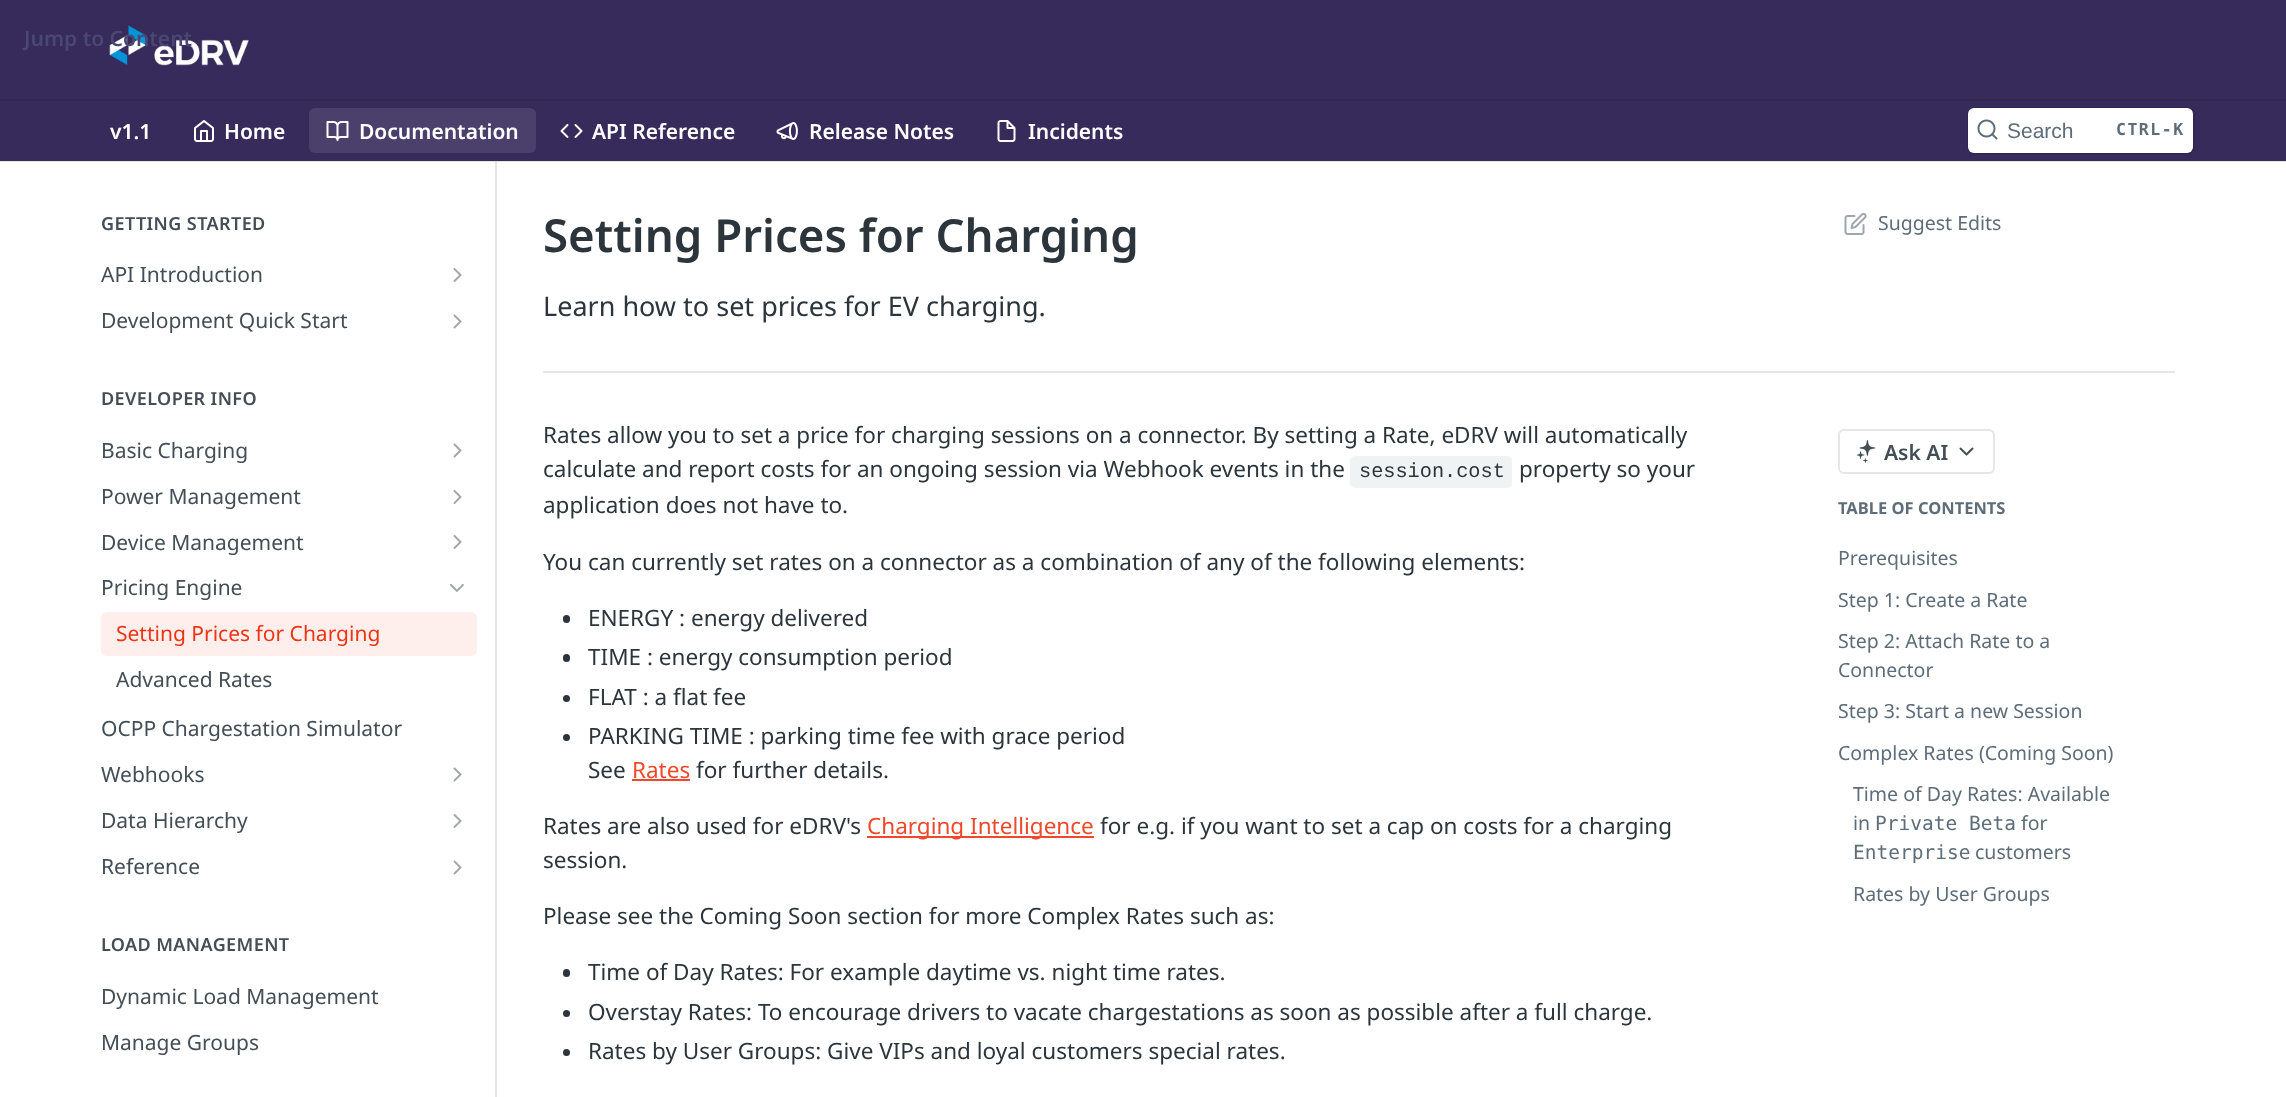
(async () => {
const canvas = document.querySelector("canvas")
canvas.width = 2286
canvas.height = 1097
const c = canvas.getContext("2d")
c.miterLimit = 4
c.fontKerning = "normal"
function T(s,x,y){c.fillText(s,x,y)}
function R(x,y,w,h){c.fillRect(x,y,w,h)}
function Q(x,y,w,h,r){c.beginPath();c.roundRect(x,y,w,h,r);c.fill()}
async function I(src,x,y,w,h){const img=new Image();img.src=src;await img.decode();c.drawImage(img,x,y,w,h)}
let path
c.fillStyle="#fff"
R(0,0,2286,1097)
c.fillStyle="#e6e6e6"
path = new Path2D("M65 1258v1h432v-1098h-2v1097z")
c.fill(path)
c.fillStyle="#0000001a"
R(0,161,2286,1)
c.fillStyle="#362b5a"
R(0,0,2286,161)
c.fillStyle="#312751"
R(0,99,2286,2)
await I("1.png",109,25,140,41)
c.font="600 21px Noto Sans"
c.fillStyle="#4a4873"
T("Jump to Content",24,46)
c.fillStyle="#fff"
T("v1.1",110,139)
await I("2.png",194,120,20,22)
T("Home",224,139)
c.fillStyle="#4a406b"
Q(309,108,227,45,6)
await I("3.png",326,121,23,20)
c.fillStyle="#fff"
T("Documentation",359,139)
await I("4.png",560,124,23,14)
T("API Reference",592,139)
await I("5.png",776,122,22,18)
T("Release Notes",809,139)
await I("6.png",997,120,19,22)
T("Incidents",1028,139)
c.beginPath()
c.roundRect(1968,108,226,46,7)
c.strokeStyle="#312751"
c.lineWidth=2
c.stroke()
Q(1968,108,225,45,6)
await I("7.png",1977,119,21,21)
c.font="21px Liberation Sans"
c.fillStyle="#5d6d79"
T("Search",2007,138)
c.letterSpacing="1.5px"
c.font="bold 16.5px DejaVu Sans Mono"
T("CTRL-K",2116,135)
c.letterSpacing="0.4px"
c.font="600 18px Noto Sans"
c.fillStyle="#434e56"
T("GETTING STARTED",101,230)
c.letterSpacing="0px"
c.font="21px Noto Sans"
T("API Introduction",101,282)
await I("8.png",453,268,9,14)
T("Development Quick Start",101,328)
await I("9.png",453,314,9,15)
c.letterSpacing="0.4px"
c.font="600 18px Noto Sans"
T("DEVELOPER INFO",101,405)
c.letterSpacing="0px"
c.font="21px Noto Sans"
T("Basic Charging",101,458)
await I("9.png",453,443,9,15)
T("Power Management",101,504)
await I("8.png",453,490,9,14)
T("Device Management",101,550)
await I("8.png",453,535,9,14)
T("Pricing Engine",101,595)
await I("10.png",450,584,14,8)
c.fillStyle="#feefec"
Q(101,612,376,44,6)
c.fillStyle="#ed3513"
T("Setting Prices for Charging",116,641)
c.fillStyle="#434e56"
T("Advanced Rates",116,687)
T("OCPP Chargestation Simulator",101,736)
T("Webhooks",101,782)
await I("9.png",453,767,9,15)
T("Data Hierarchy",101,828)
await I("8.png",453,814,9,14)
T("Reference",101,874)
await I("9.png",453,860,9,15)
c.letterSpacing="0.4px"
c.font="600 18px Noto Sans"
T("LOAD MANAGEMENT",101,951)
c.letterSpacing="0px"
c.font="21px Noto Sans"
T("Dynamic Load Management",101,1004)
T("Manage Groups",101,1050)
c.fillStyle="#e6e6e6"
R(543,371,1632,2)
c.font="600 45.6px Noto Sans"
c.fillStyle="#2b353b"
T("Setting Prices for Charging",543,252)
c.font="27px Noto Sans"
T("Learn how to set prices for EV charging.",543,316)
await I("11.png",1844,212,23,23)
c.font="19.5px Noto Sans"
c.fillStyle="#5d6d79"
T("Suggest Edits",1878,230)
c.font="22.5px Noto Sans"
c.fillStyle="#2b353b"
T("Rates allow you to set a price for charging sessions on a connector. By setting a Rate, eDRV will automatically",543,443)
T("calculate and report costs for an ongoing session via Webhook events in the",543,477)
c.fillStyle="#f0f3f4"
Q(1350,456,162,32,5)
c.font="20.25px Liberation Mono"
c.fillStyle="#2b353b"
T("session.cost",1359,477)
c.font="22.5px Noto Sans"
T("property so your",1519,477)
T("application does not have to.",543,513)
T("You can currently set rates on a connector as a combination of any of the following elements:",543,570)
Q(563,615,7,8,3.5)
T("ENERGY : energy delivered",588,626)
Q(563,654,7,8,3.5)
T("TIME : energy consumption period",588,665)
c.beginPath()
c.arc(566.5,698.5,3.5,0,7)
c.fill()
T("FLAT : a flat fee",588,705)
c.beginPath()
c.arc(566.5,737.5,3.5,0,7)
c.fill()
T("PARKING TIME : parking time fee with grace period",588,744)
T("See",588,778)
c.fillStyle="#ef492b"
T("Rates",632,778)
R(632,779,58,2)
c.fillStyle="#2b353b"
T("for further details.",696,778)
T("Rates are also used for eDRV's",543,834)
c.fillStyle="#ef492b"
R(867,836,227,2)
T("Charging Intelligence",867,834)
c.fillStyle="#2b353b"
T("for e.g. if you want to set a cap on costs for a charging",1100,834)
T("session.",543,868)
T("Please see the Coming Soon section for more Complex Rates such as:",543,924)
Q(563,969,7,8,3.5)
T("Time of Day Rates: For example daytime vs. night time rates.",588,980)
c.beginPath()
c.arc(566.5,1013.5,3.5,0,7)
c.fill()
T("Overstay Rates: To encourage drivers to vacate chargestations as soon as possible after a full charge.",588,1020)
c.beginPath()
c.arc(566.5,1052.5,3.5,0,7)
c.fill()
T("Rates by User Groups: Give VIPs and loyal customers special rates.",588,1059)
c.beginPath()
c.roundRect(1839,430,155,43,5)
c.strokeStyle="#e6e6e6"
c.stroke()
await I("12.png",1856,440,20,23)
c.font="600 21px Noto Sans"
c.fillStyle="#434e56"
T("Ask AI",1884,460)
path = new Path2D("M1960.5 448.5l6 6l6-6")
c.strokeStyle="#434e56"
c.lineCap="round"
c.lineJoin="round"
c.stroke(path)
c.font="bold 16.5px Noto Sans"
c.fillStyle="#5d6d79"
T("TABLE OF CONTENTS",1838,514)
c.font="19.5px Noto Sans"
T("Prerequisites",1838,565)
T("Step 1: Create a Rate",1838,607)
T("Step 2: Attach Rate to a",1838,648)
T("Connector",1838,677)
T("Step 3: Start a new Session",1838,718)
T("Complex Rates (Coming Soon)",1838,760)
T("Time of Day Rates: Available",1853,801)
T("in",1853,830)
c.font="19.5px DejaVu Sans Mono"
T("Private Beta",1875,830)
c.font="19.5px Noto Sans"
T("for",2021,830)
c.font="19.5px DejaVu Sans Mono"
T("Enterprise",1853,859)
c.font="19.5px Noto Sans"
T("customers",1975,859)
T("Rates by User Groups",1853,901)
})()
